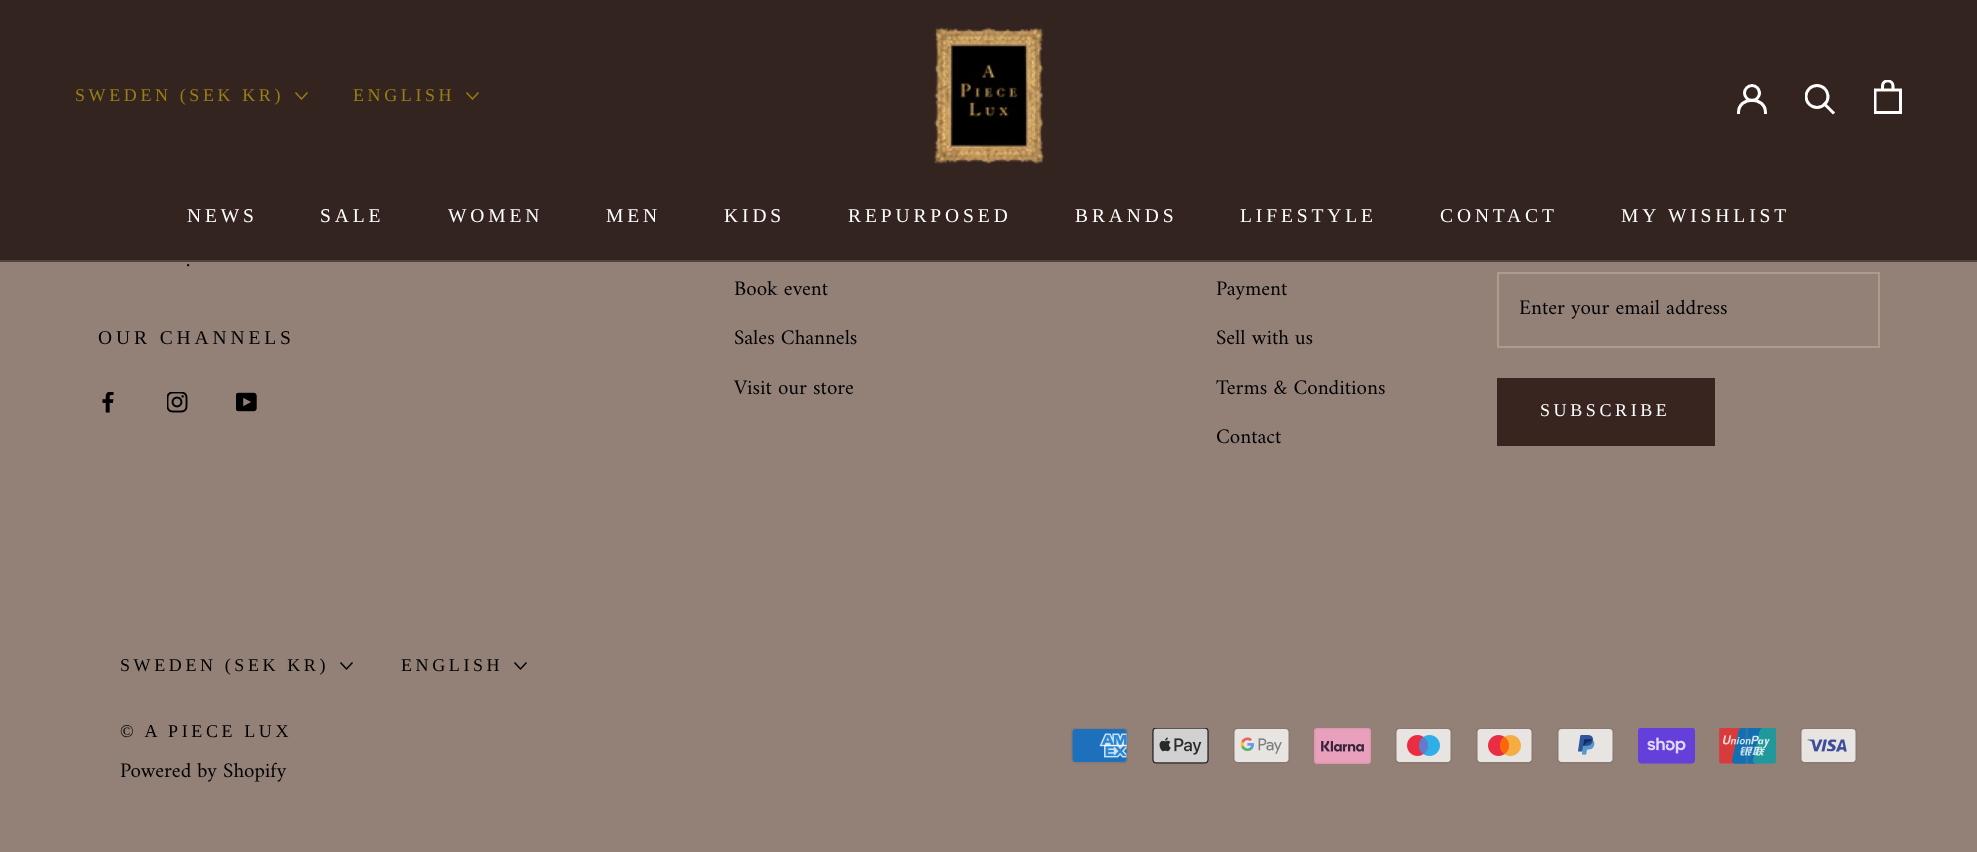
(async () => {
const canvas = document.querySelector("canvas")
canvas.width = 1977
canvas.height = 852
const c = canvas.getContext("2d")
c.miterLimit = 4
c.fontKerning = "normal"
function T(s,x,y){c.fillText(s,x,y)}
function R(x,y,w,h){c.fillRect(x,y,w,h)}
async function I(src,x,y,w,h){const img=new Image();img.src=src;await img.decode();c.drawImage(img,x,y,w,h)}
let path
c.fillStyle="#938178"
R(0,0,1977,852)
c.fillStyle="#342420"
R(0,0,1977,260)
c.font="21px Amiri"
c.fillStyle="#000"
T(".",186,266)
c.fillStyle="#524541"
R(0,260,1977,2)
await I("1.png",934,27,111,137)
path = new Path2D("M1738.5 112.5c0-16.5 27-16.5 27 0")
c.strokeStyle="#fff"
c.lineWidth=3
c.lineCap="square"
c.stroke(path)
c.beginPath()
c.arc(1752,93,7.5,0,7)
c.stroke()
path = new Path2D("M1833 112.5l-8.5-8.5")
c.stroke(path)
c.save()
c.beginPath()
c.rect(1805,84,31,32)
c.clip()
c.beginPath()
c.arc(1817,96.5,11,0,7)
c.stroke()
c.restore()
await I("2.png",1874,80,28,34)
c.letterSpacing="3.6px"
c.font="18px Liberation Serif"
c.fillStyle="#997e15"
T("SWEDEN (SEK KR)",75,101)
path = new Path2D("M307 93l-5.5 6l-5.5-6")
c.strokeStyle="#997e15"
c.lineWidth=1.5
c.stroke(path)
T("ENGLISH",353,101)
path = new Path2D("M478 93l-5.5 6l-5.5-6")
c.stroke(path)
c.letterSpacing="3.9px"
c.font="19.5px Liberation Serif"
c.fillStyle="#fff"
T("NEWS",187,222)
T("SALE",320,222)
T("WOMEN",448,222)
T("MEN",606,222)
T("KIDS",724,222)
T("REPURPOSED",848,222)
T("BRANDS",1075,222)
T("LIFESTYLE",1240,222)
T("CONTACT",1440,222)
T("MY WISHLIST",1621,222)
c.fillStyle="#000"
T("OUR CHANNELS",98,344)
await I("3.png",102,392,12,21)
await I("4.png",167,392,21,21)
await I("5.png",236,392,21,20)
c.letterSpacing="0px"
c.font="21px Amiri"
T("Book event",734,295)
T("Sales Channels",734,344)
T("Visit our store",734,394)
T("Payment",1216,295)
T("Sell with us",1216,344)
T("Terms & Conditions",1216,394)
T("Contact",1216,443)
c.strokeStyle="#ab9d8b"
c.lineWidth=2
c.strokeRect(1498,273,381,74)
T("Enter your email address",1519,314)
c.strokeStyle="#382520"
c.strokeRect(1498,379,216,66)
c.fillStyle="#382520"
R(1499,380,214,64)
c.letterSpacing="3.6px"
c.font="18px Liberation Serif"
c.fillStyle="#fff"
T("SUBSCRIBE",1540,416)
c.fillStyle="#000"
T("SWEDEN (SEK KR)",120,671)
path = new Path2D("M352 663l-5.5 6l-5.5-6")
c.strokeStyle="#000"
c.lineWidth=1.5
c.stroke(path)
T("ENGLISH",401,671)
path = new Path2D("M526 663l-5.5 6l-5.5-6")
c.stroke(path)
T("© A PIECE LUX",120,737)
c.letterSpacing="0px"
c.font="21px Amiri"
T("Powered by Shopify",120,777)
await I("6.png",1071,728,57,36)
await I("7.png",1152,728,57,36)
await I("8.png",1233,728,57,36)
await I("9.png",1314,728,57,36)
await I("10.png",1395,728,57,36)
await I("11.png",1476,728,57,36)
await I("12.png",1557,728,57,36)
await I("13.png",1638,728,57,36)
await I("14.png",1719,728,57,36)
await I("15.png",1800,728,57,36)
})()
